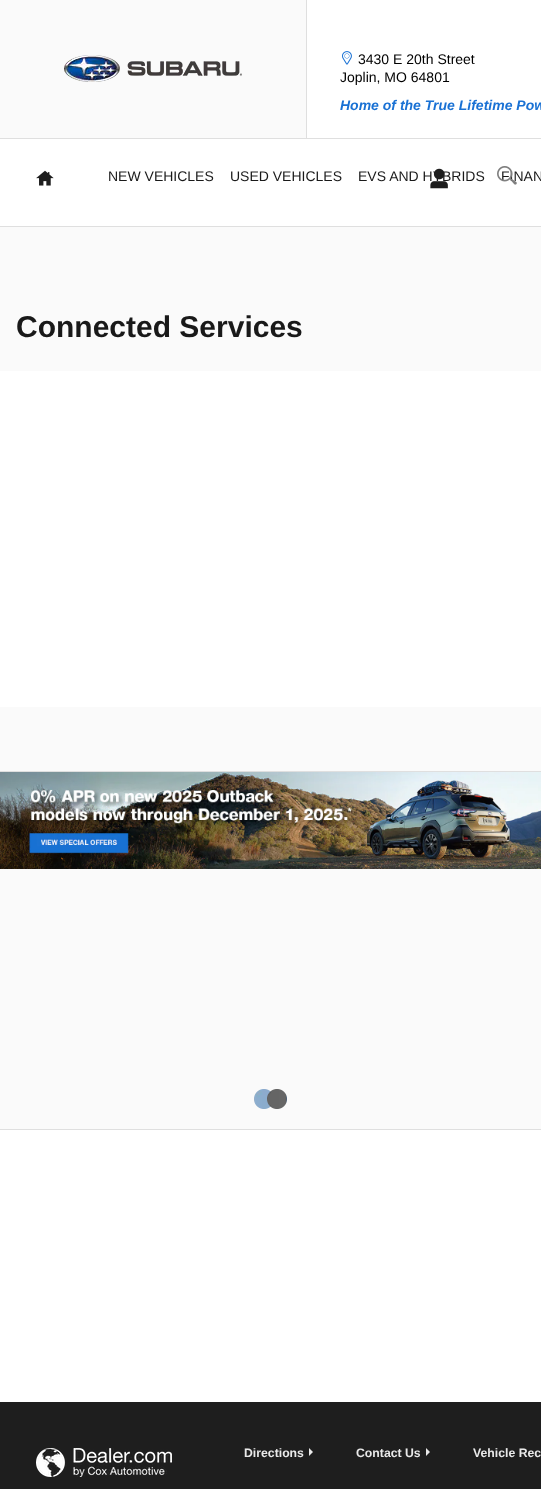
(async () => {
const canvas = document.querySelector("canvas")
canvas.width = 541
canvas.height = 1489
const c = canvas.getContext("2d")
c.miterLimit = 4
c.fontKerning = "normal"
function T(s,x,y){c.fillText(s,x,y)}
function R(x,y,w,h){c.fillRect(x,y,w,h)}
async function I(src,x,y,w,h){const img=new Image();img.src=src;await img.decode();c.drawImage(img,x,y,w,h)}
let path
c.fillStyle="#fafafa"
R(0,0,541,1489)
c.fillStyle="#fff"
R(307,0,234,138)
await I("1.png",64,55,178,27)
c.fillStyle="#dfdfdf"
R(306,0,1,138)
await I("2.png",342,51,10,14)
c.font="14px Liberation Sans"
c.fillStyle="#000"
T("3430 E 20th Street",358,64)
T("Joplin, MO 64801",340,82)
c.font="italic bold 14px Liberation Sans"
c.fillStyle="#1971d4"
T("Home of the True Lifetime Pow",340,110)
c.fillStyle="#fff"
R(0,139,541,87)
c.fillStyle="#dfdfdf"
R(0,138,541,1)
R(0,226,541,1)
c.font="14px Liberation Sans"
c.fillStyle="#191919"
T("EVS AND HYBRIDS",358,181)
await I("3.png",430,168,18,21)
T("FINAN",501,181)
await I("4.png",497,166,20,19)
await I("5.png",36,170,18,16)
T("NEW VEHICLES",108,181)
T("USED VEHICLES",230,181)
c.font="bold 30px Liberation Sans"
T("Connected Services",16,337)
c.fillStyle="#fff"
R(0,371,541,336)
R(0,1130,541,272)
c.fillStyle="#dfdfdf"
R(0,771,541,1)
await I("6.png",0,772,541,97)
await I("7.png",254,1089,17,20)
await I("8.png",267,1089,20,20)
R(0,1129,541,1)
c.fillStyle="#1e1e1e"
R(0,1402,541,87)
await I("9.png",36,1448,136,29)
c.font="bold 12.25px Liberation Sans"
c.fillStyle="#e9e9e9"
T("Directions",244,1457)
path = new Path2D("M309 1448v8l4-4z")
c.fill(path)
T("Contact Us",356,1457)
path = new Path2D("M426 1448v8l4-4z")
c.fill(path)
T("Vehicle Rec",473,1457)
})()
